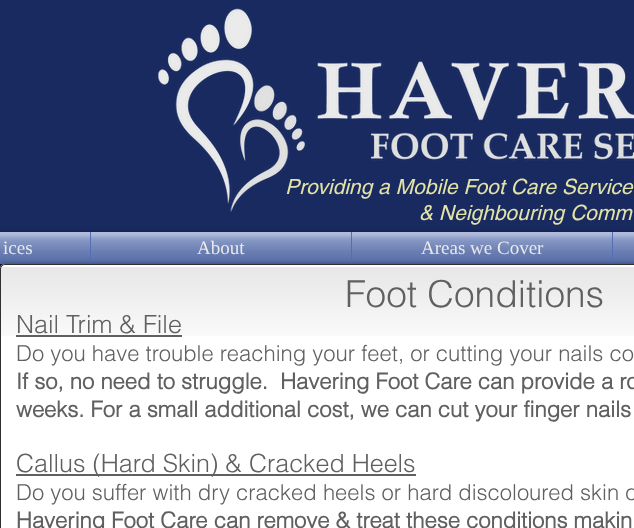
(async () => {
const canvas = document.querySelector("canvas")
canvas.width = 634
canvas.height = 528
const c = canvas.getContext("2d")
c.miterLimit = 4
c.fontKerning = "normal"
function T(s,x,y){c.fillText(s,x,y)}
function R(x,y,w,h){c.fillRect(x,y,w,h)}
function Q(x,y,w,h,r){c.beginPath();c.roundRect(x,y,w,h,r);c.fill()}
async function I(src,x,y,w,h){const img=new Image();img.src=src;await img.decode();c.drawImage(img,x,y,w,h)}
c.fillStyle="#192a61"
R(0,0,634,528)
await I("1.png",156,8,478,204)
c.font="italic 21px helvetica"
c.fillStyle="#e3e3a6"
T("Providing a Mobile Foot Care Service",285,194)
T("& Neighbouring Comm",419,220)
c.fillStyle="#00000099"
c.filter="blur(2px)"
c.beginPath()
c.roundRect(-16,233,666,32,10)
c.fill()
c.filter="none"
c.fillStyle="#536eb7"
R(0,232,634,32)
c.font="19px Liberation Serif"
c.fillStyle="#fff"
T("ices",3,254)
await I("2.png",0,232,90,32)
await I("3.png",0,232,90,32)
T("About",197,254)
await I("4.png",91,232,260,32)
await I("5.png",91,232,260,32)
T("Areas we Cover",421,254)
await I("6.png",352,232,260,32)
await I("7.png",352,232,260,32)
await I("8.png",613,232,21,32)
await I("9.png",613,232,21,32)
c.fillStyle="#00000099"
c.filter="blur(2px)"
c.beginPath()
c.roundRect(0,265,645,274,5)
c.fill()
c.filter="none"
c.fillStyle="#fff"
Q(0,264,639,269,5)
await I("10.png",0,267,634,69)
c.beginPath()
c.roundRect(.5,264.5,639,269,4.5)
c.strokeStyle="#303030"
c.stroke()
c.font="300 37px helvetica"
c.fillStyle="#606060"
T("Foot Conditions",345,307)
c.font="300 25px helvetica"
T("Nail Trim & File",16,333)
R(16,335,166,2)
c.font="300 22px helvetica"
T("Do you have trouble reaching your feet, or cutting your nails co",16,361)
c.font="bold 22px helvetica"
T("If so, no need to struggle.  Havering Foot Care can provide a ro",16,389)
T("weeks. For a small additional cost, we can cut your finger nails",16,417)
R(16,474,400,2)
c.font="300 25px helvetica"
T("Callus (Hard Skin) & Cracked Heels",16,472)
c.font="300 22px helvetica"
T("Do you suffer with dry cracked heels or hard discoloured skin o",16,500)
c.font="bold 22px helvetica"
T("Havering Foot Care can remove & treat these conditions makin",16,528)
})()
